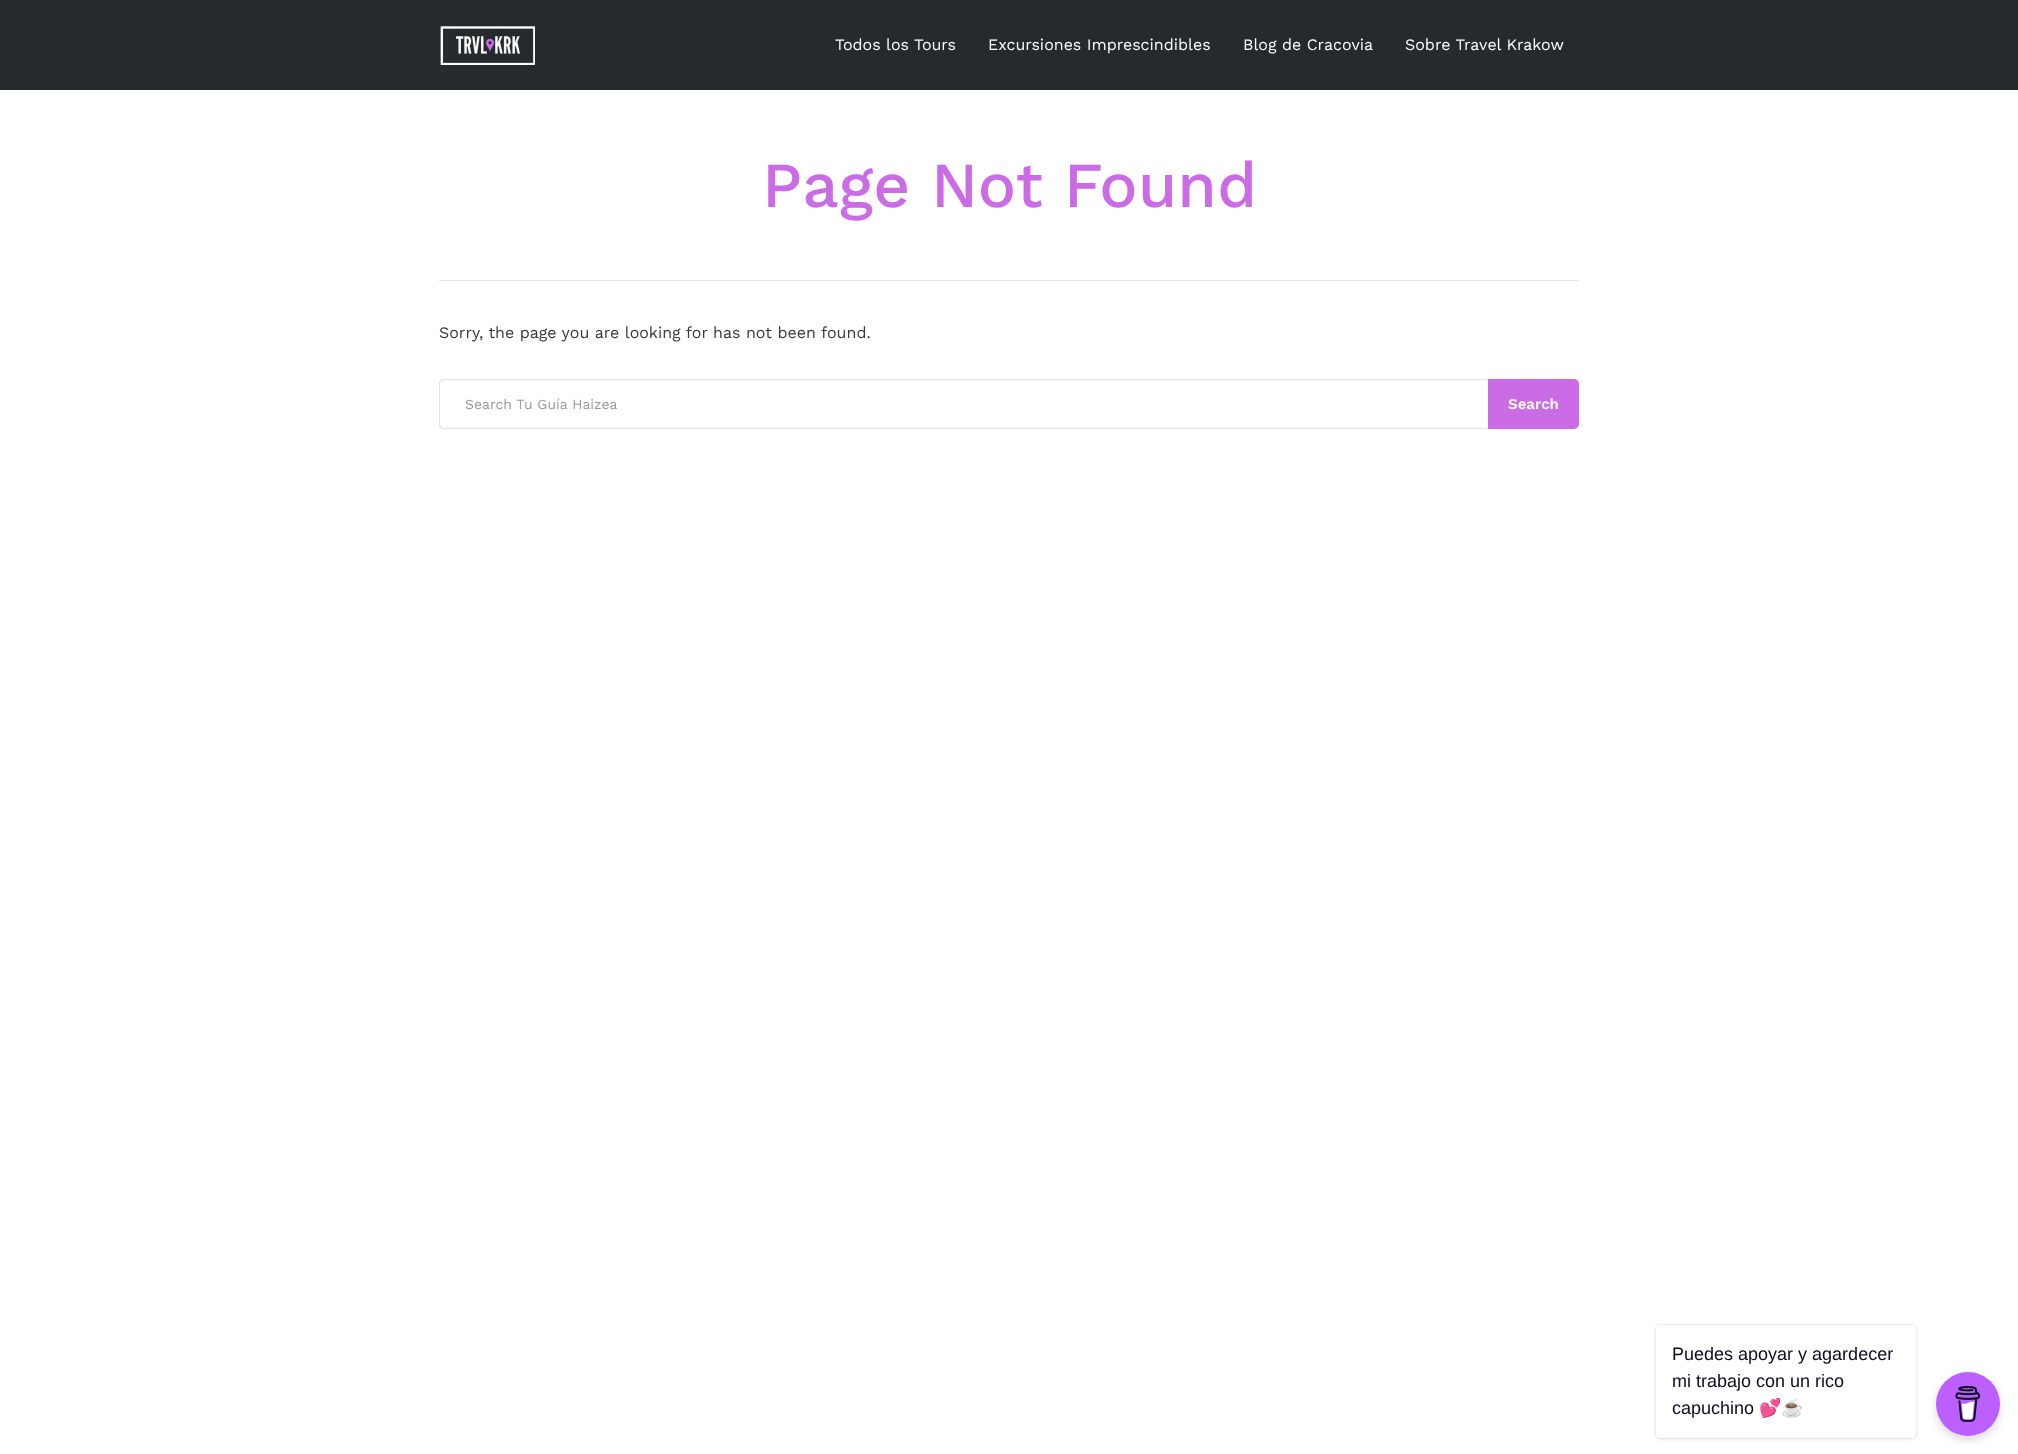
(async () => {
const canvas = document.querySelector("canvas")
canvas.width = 2018
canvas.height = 1454
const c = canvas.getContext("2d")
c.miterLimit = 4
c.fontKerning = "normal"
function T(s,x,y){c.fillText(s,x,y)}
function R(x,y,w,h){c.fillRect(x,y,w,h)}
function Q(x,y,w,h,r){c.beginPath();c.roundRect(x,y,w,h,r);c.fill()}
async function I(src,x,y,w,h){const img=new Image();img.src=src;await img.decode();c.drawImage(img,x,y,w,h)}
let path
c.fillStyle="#fff"
R(0,0,2018,1454)
c.fillStyle="#252b2d"
R(0,0,2018,90)
await I("1.png",439,26,96,39)
c.font="16px Work Sans"
c.fillStyle="#fff"
T("Todos los Tours",835,50)
T("Excursiones Imprescindibles",988,50)
T("Blog de Cracovia",1243,50)
T("Sobre Travel Krakow",1405,50)
c.fillStyle="#e6e6e6"
R(439,280,1140,1)
c.font="500 64px Work Sans"
c.fillStyle="#cb6ce6"
T("Page Not Found",762,207)
c.font="16px Work Sans"
c.fillStyle="#393939"
T("Sorry, the page you are looking for has not been found.",439,338)
c.fillStyle="#e2e2e2"
path = new Path2D("M444 379h1044v50h-1044c-3 0-5-2-5-5v-40c0-3 2-5 5-5zm0 1h1044v48h-1044c-2 0-4-2-4-4v-40c0-2 2-4 4-4z")
c.fill(path,"evenodd")
c.font="14px Work Sans"
c.fillStyle="#999"
T("Search Tu Guía Haizea",465,409)
c.fillStyle="#cb6ce6"
c.beginPath()
c.roundRect(1488,379,91,50,[0,5,5,0])
c.fill()
c.font="600 15px Work Sans"
c.fillStyle="#fff"
T("Search",1508,409)
c.fillStyle="#00000026"
c.filter="blur(1px)"
c.beginPath()
c.roundRect(1656,1325,260,113,4)
c.fill()
c.filter="none"
c.fillStyle="#0000000d"
c.filter="blur(2.5px)"
c.beginPath()
c.roundRect(1656,1327,260,113,4)
c.fill()
c.filter="none"
c.fillStyle="#fff"
Q(1656,1325,260,113,4)
c.font="18px Liberation Sans"
c.fillStyle="#0d0c22"
T("Puedes apoyar y agardecer",1672,1360)
T("mi trabajo con un rico",1672,1387)
T("capuchino",1672,1414)
c.font="18px Noto Color Emoji"
T("💕☕",1759,1414)
c.fillStyle="#00000026"
c.filter="blur(4px)"
c.beginPath()
c.roundRect(1936,1376,64,64,32)
c.fill()
c.filter="none"
c.fillStyle="#bd5fff"
c.beginPath()
c.arc(1968,1404,32,0,7)
c.fill()
await I("2.png",1955,1386,26,36)
})()
